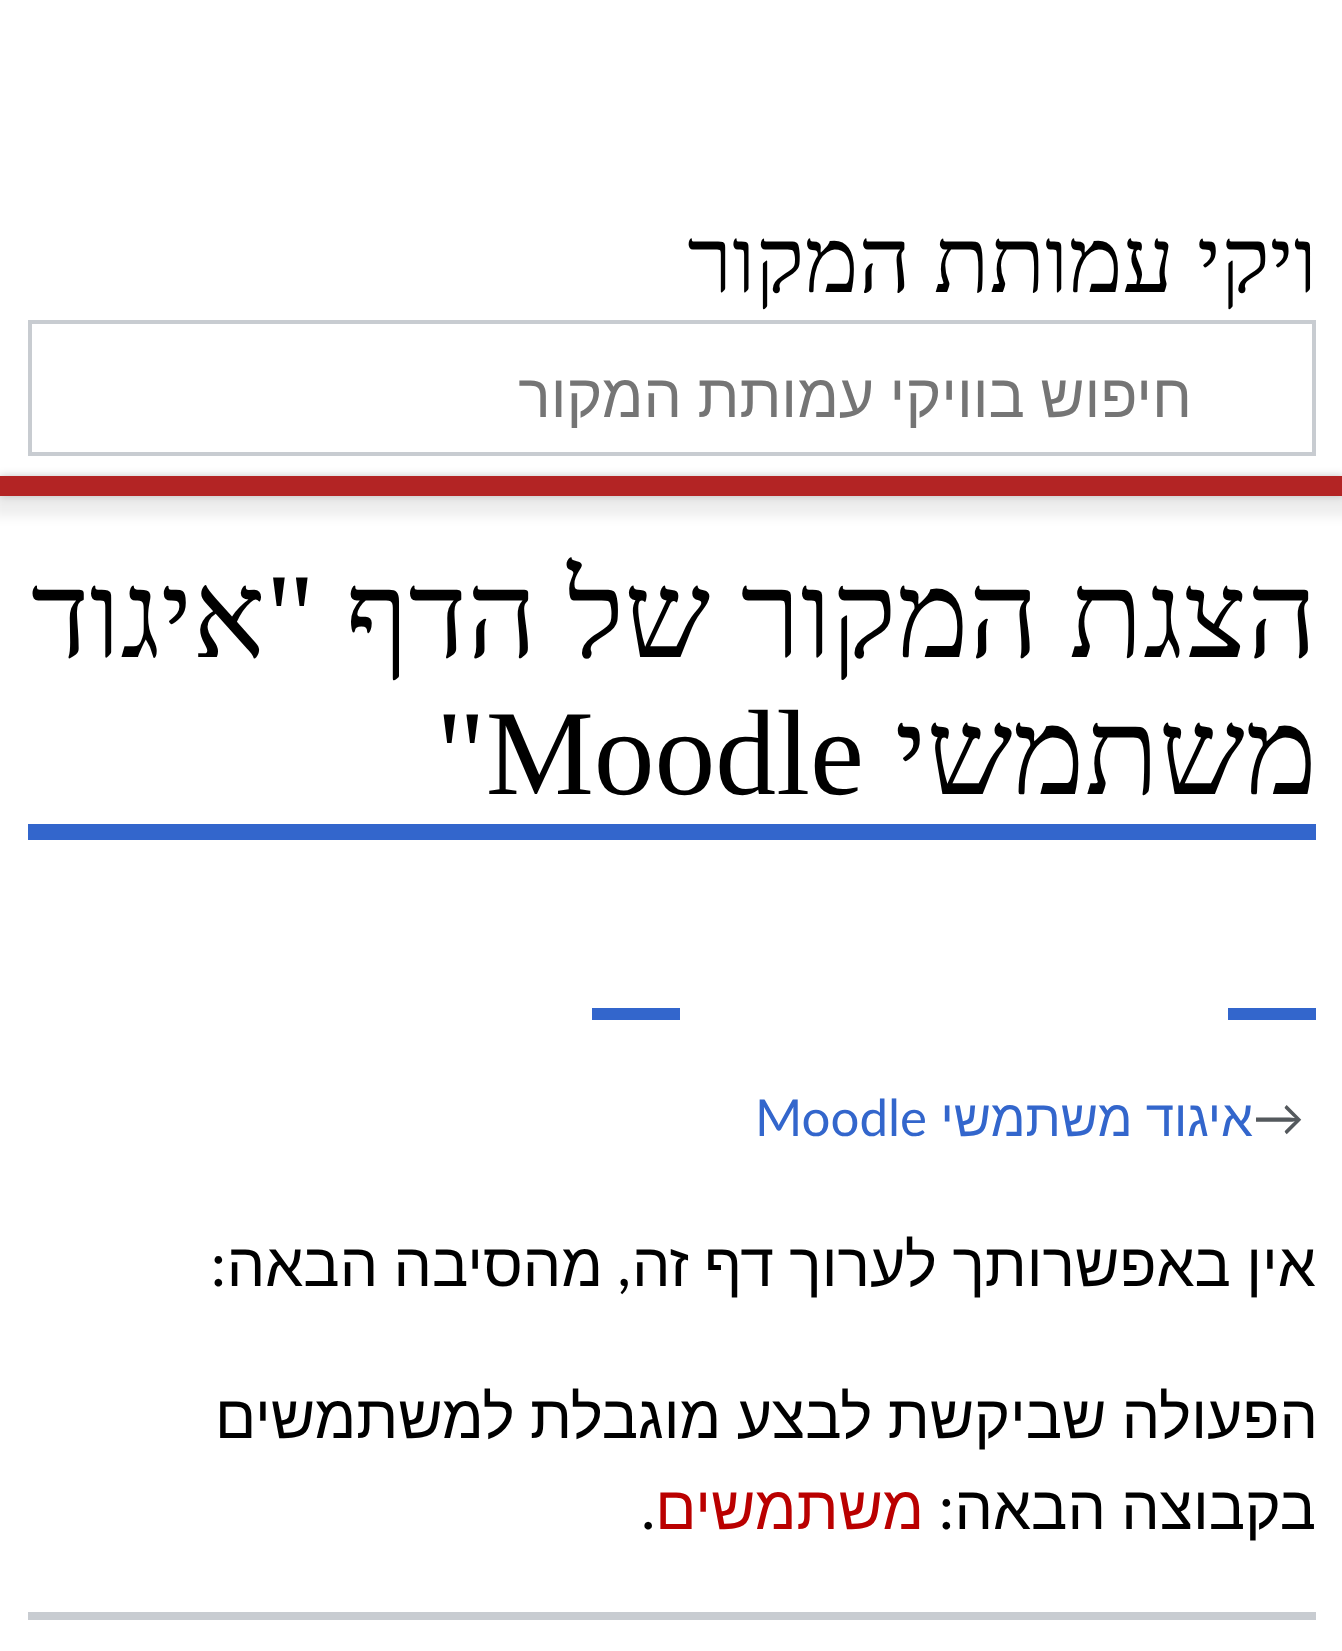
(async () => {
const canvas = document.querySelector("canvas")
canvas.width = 1342
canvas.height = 1651
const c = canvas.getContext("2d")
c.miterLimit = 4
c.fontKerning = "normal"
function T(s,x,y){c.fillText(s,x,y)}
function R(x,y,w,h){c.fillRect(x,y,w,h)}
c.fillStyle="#fff"
R(0,0,1342,1651)
c.direction="rtl"
c.font="91.25px Liberation Serif"
c.fillStyle="#000"
T("ויקי עמותת המקור",1317,292)
c.strokeStyle="#c8ccd1"
c.lineWidth=4
c.strokeRect(30,322,1284,132)
c.save()
c.beginPath()
c.rect(320,356,872,72)
c.clip()
c.wordSpacing="-1.5px"
c.font="60.75px Liberation Sans"
c.fillStyle="#757575"
T("חיפוש בוויקי עמותת המקור",1192,417)
c.restore()
c.fillStyle="#00000033"
c.filter="blur(4px)"
c.beginPath()
c.rect(0,476,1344,20)
c.fill()
c.filter="none"
c.fillStyle="#00000012"
c.filter="blur(6px)"
c.beginPath()
c.rect(-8,480,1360,36)
c.fill()
c.filter="none"
c.fillStyle="#b32424"
R(0,476,1342,20)
c.fillStyle="#36c"
R(28,824,1288,16)
c.font="121.6px Liberation Serif"
c.fillStyle="#000"
T("הצגת המקור של הדף \"איגוד",1317,657)
T("משתמשי",1317,794)
c.direction="ltr"
T("\"Moodle",436,794)
c.fillStyle="#36c"
R(1228,1008,88,12)
R(592,1008,88,12)
c.font="51px Lato"
c.fillStyle="#54595d"
T("→",1253,1136)
c.wordSpacing="-1px"
c.direction="rtl"
c.font="51px Liberation Sans"
c.fillStyle="#36c"
T("איגוד משתמשי",1253,1136)
c.wordSpacing="0px"
c.direction="ltr"
c.font="51px Lato"
T("Moodle",755,1136)
c.wordSpacing="-1.5px"
c.direction="rtl"
c.font="60.75px Liberation Sans"
c.fillStyle="#000"
T("אין באפשרותך לערוך דף זה",1316,1286)
c.wordSpacing="0px"
c.font="60.75px Lato"
T(",",631,1286)
c.wordSpacing="-1.5px"
c.font="60.75px Liberation Sans"
T("מהסיבה הבאה",603,1286)
c.wordSpacing="0px"
c.font="60.75px Lato"
T(":",226,1286)
c.wordSpacing="-1.5px"
c.font="60.75px Liberation Sans"
T("הפעולה שביקשת לבצע מוגבלת למשתמשים",1318,1438)
T("בקבוצה הבאה",1316,1529)
c.wordSpacing="0px"
c.font="60.75px Lato"
T(":",954,1529)
c.font="60.75px Liberation Sans"
c.fillStyle="#ba0000"
T("משתמשים",924,1529)
c.direction="ltr"
c.font="60.75px Lato"
c.fillStyle="#000"
T(".",641,1529)
c.fillStyle="#c8ccd1"
R(28,1612,1288,8)
})()
